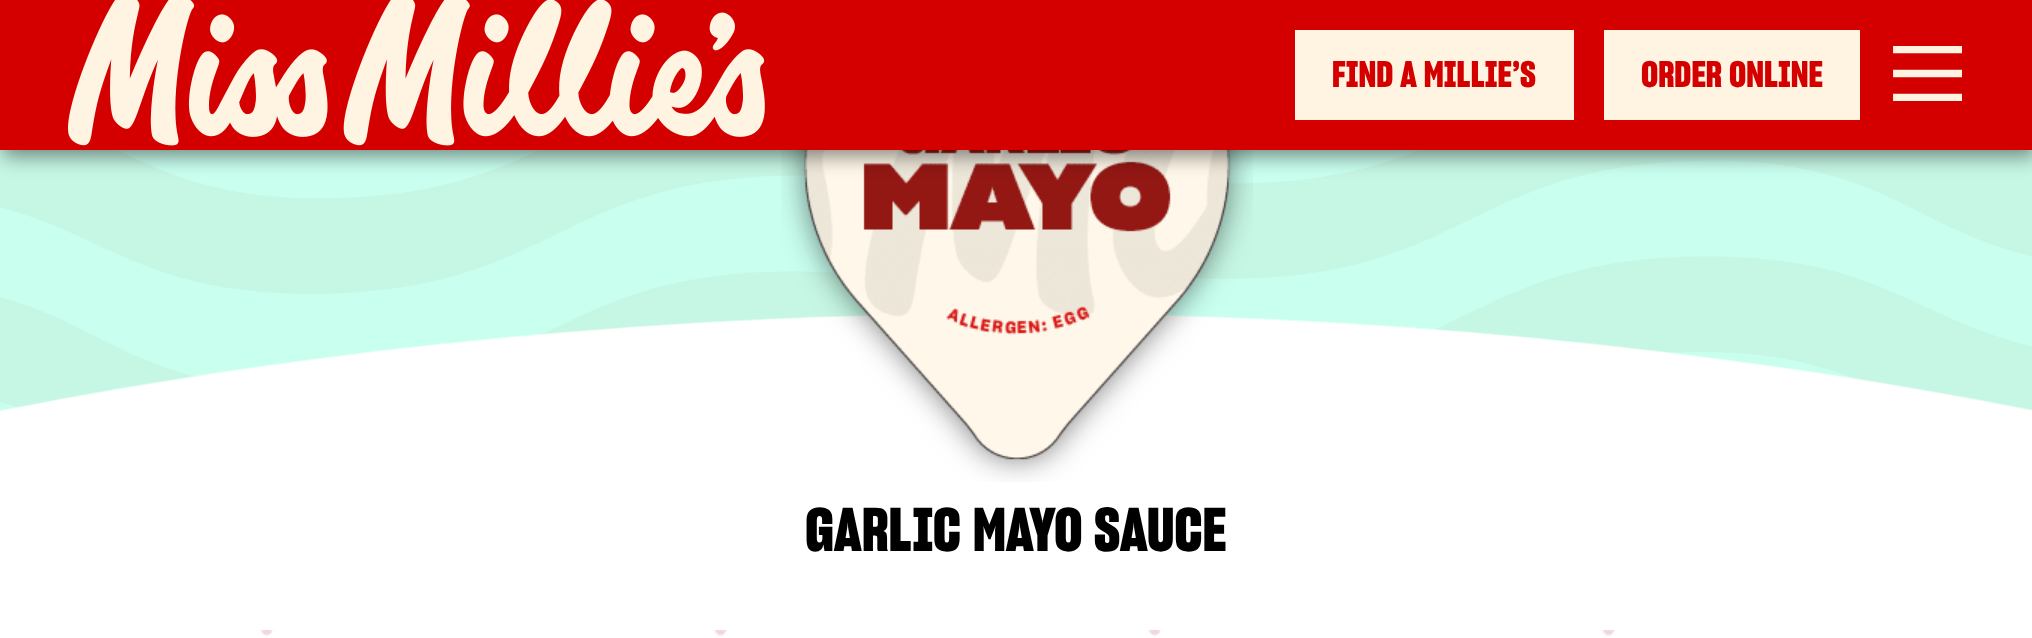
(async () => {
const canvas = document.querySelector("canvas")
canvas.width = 2032
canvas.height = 638
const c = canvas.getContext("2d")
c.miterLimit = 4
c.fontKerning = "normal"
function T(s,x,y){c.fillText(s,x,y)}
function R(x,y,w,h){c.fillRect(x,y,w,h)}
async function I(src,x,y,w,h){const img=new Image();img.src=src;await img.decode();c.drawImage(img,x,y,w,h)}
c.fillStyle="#fff"
R(0,0,2032,638)
c.fillStyle="#c9ffef"
R(0,150,1790,262)
await I("3.png",0,150,2032,262)
await I("4.png",0,314,2032,118)
await I("5.png",781,150,472,332)
c.fillStyle="#00000078"
c.filter="blur(10px)"
c.beginPath()
c.rect(3,6,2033,150)
c.fill()
c.filter="none"
c.fillStyle="#d40000"
R(0,0,2032,150)
await I("1.png",68,0,697,146)
c.fillStyle="#fff3e1"
R(1295,30,279,90)
c.font="bold 36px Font"
c.fillStyle="#d40000"
T("FIND A MILLIE’S",1332,87)
c.fillStyle="#fff3e1"
R(1604,30,256,90)
c.fillStyle="#d40000"
T("ORDER ONLINE",1641,87)
await I("2.png",1893,46,69,55)
c.font="bold 60px Font"
c.fillStyle="#000"
T("GARLIC MAYO SAUCE",805,551)
await I("6.png",0,630,2032,8)
})()
